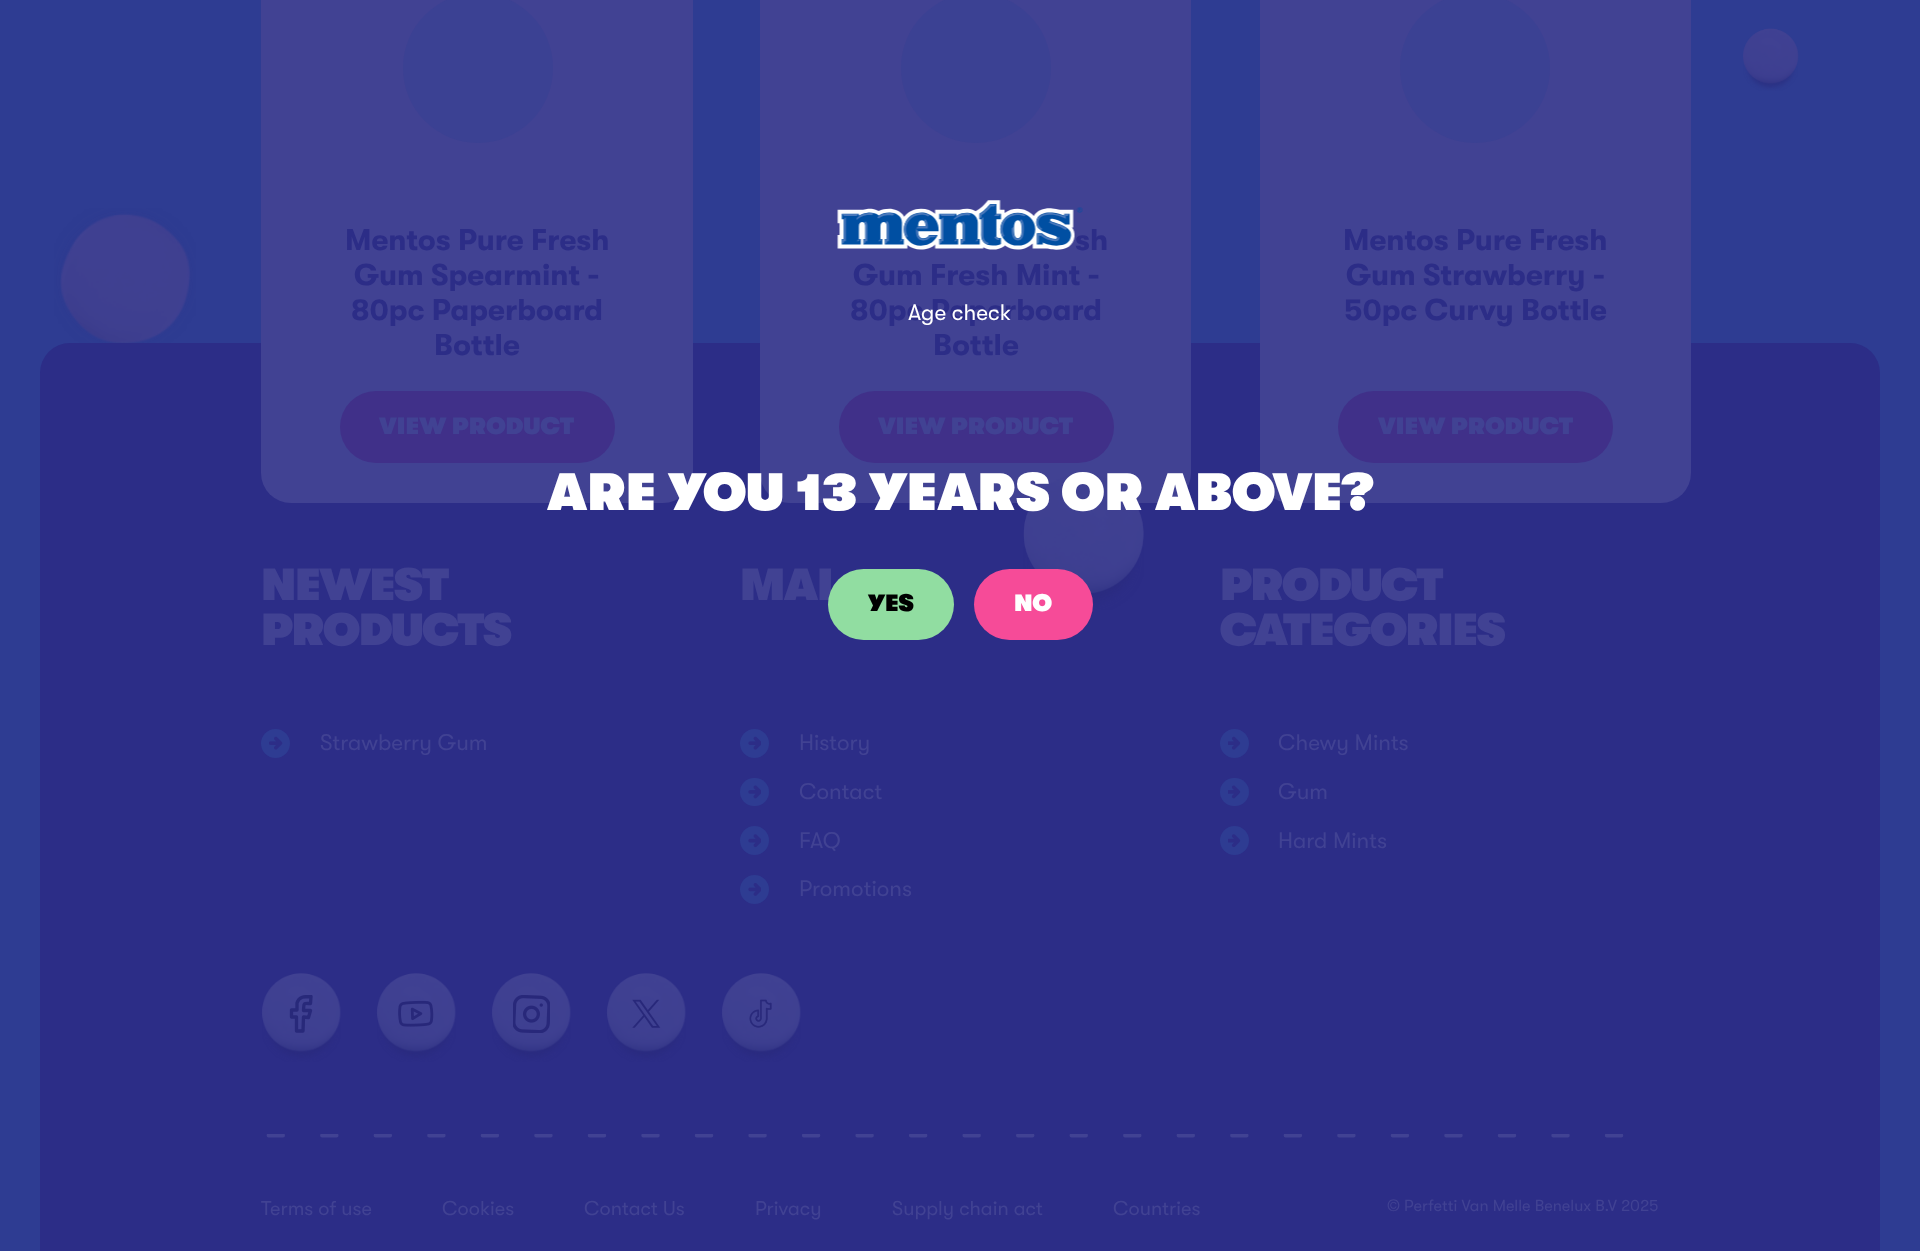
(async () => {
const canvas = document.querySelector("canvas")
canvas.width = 1920
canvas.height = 1251
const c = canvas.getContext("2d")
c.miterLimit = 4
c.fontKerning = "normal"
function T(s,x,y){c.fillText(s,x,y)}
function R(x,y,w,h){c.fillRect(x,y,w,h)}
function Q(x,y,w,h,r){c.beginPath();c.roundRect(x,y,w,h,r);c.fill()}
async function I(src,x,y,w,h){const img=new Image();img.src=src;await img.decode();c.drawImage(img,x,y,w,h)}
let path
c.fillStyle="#2e3c92"
R(0,0,1920,1251)
await I("1.png",54,208,142,135)
await I("2.png",1742,28,57,63)
c.fillStyle="#2c2d87"
Q(40,343,1840,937,30)
c.fillStyle="#414293"
Q(760,-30,431,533,30)
await I("3.png",1023,474,121,136)
Q(261,-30,432,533,30)
c.fillStyle="#3b4193"
c.beginPath()
c.arc(478,68,75,0,7)
c.fill()
c.font="bold 30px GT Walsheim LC"
c.fillStyle="#2c2d87"
T("Mentos Pure Fresh",345,250)
T("Gum Spearmint -",354,285)
T("80pc Paperboard",351,320)
T("Bottle",434,355)
c.fillStyle="#403089"
Q(340,391,275,72,36)
c.font="900 23.75px GT Walsheim LC"
c.fillStyle="#414293"
T("VIEW PRODUCT",379,434)
c.fillStyle="#3b4193"
c.beginPath()
c.arc(976,68,75,0,7)
c.fill()
c.font="bold 30px GT Walsheim LC"
c.fillStyle="#2c2d87"
T("sh",1075,250)
T("Gum Fresh Mint -",853,285)
T("80pc Paperboard",850,320)
T("Bottle",933,355)
c.fillStyle="#403089"
Q(839,391,275,72,36)
c.font="900 23.75px GT Walsheim LC"
c.fillStyle="#414293"
T("VIEW PRODUCT",878,434)
Q(1260,-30,431,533,30)
c.fillStyle="#3b4193"
c.beginPath()
c.arc(1475,68,75,0,7)
c.fill()
c.font="bold 30px GT Walsheim LC"
c.fillStyle="#2c2d87"
T("Mentos Pure Fresh",1343,250)
T("Gum Strawberry -",1346,285)
T("50pc Curvy Bottle",1344,320)
c.fillStyle="#403089"
Q(1338,391,275,72,36)
c.font="900 23.75px GT Walsheim LC"
c.fillStyle="#414293"
T("VIEW PRODUCT",1378,434)
c.letterSpacing="-1.4px"
c.font="900 45px GT Walsheim LC"
T("NEWEST",261,600)
T("PRODUCTS",261,645)
c.fillStyle="#2e3c92"
c.beginPath()
c.arc(275.5,743.5,14.5,0,7)
c.fill()
await I("4.png",269,736,14,14)
c.letterSpacing="0px"
c.font="22.5px GT Walsheim LC"
c.fillStyle="#414293"
T("Strawberry Gum",320,750)
c.letterSpacing="-1.4px"
c.font="900 45px GT Walsheim LC"
T("MAI",740,600)
c.fillStyle="#2e3c92"
c.beginPath()
c.arc(754.5,743.5,14.5,0,7)
c.fill()
await I("5.png",748,736,13,14)
c.letterSpacing="0px"
c.font="22.5px GT Walsheim LC"
c.fillStyle="#414293"
T("History",799,750)
c.fillStyle="#2e3c92"
Q(740,778,29,28,14)
await I("6.png",748,785,13,14)
c.fillStyle="#414293"
T("Contact",799,799)
c.fillStyle="#2e3c92"
c.beginPath()
c.arc(754.5,840.5,14.5,0,7)
c.fill()
await I("7.png",748,834,13,14)
c.fillStyle="#414293"
T("FAQ",799,848)
c.fillStyle="#2e3c92"
c.beginPath()
c.arc(754.5,889.5,14.5,0,7)
c.fill()
await I("8.png",748,883,13,13)
c.fillStyle="#414293"
T("Promotions",799,896)
c.letterSpacing="-1.4px"
c.font="900 45px GT Walsheim LC"
T("PRODUCT",1220,600)
T("CATEGORIES",1220,645)
c.fillStyle="#2e3c92"
c.beginPath()
c.arc(1234.5,743.5,14.5,0,7)
c.fill()
await I("9.png",1228,736,13,14)
c.letterSpacing="0px"
c.font="22.5px GT Walsheim LC"
c.fillStyle="#414293"
T("Chewy Mints",1278,750)
c.fillStyle="#2e3c92"
Q(1220,778,29,28,14)
await I("10.png",1228,785,13,14)
c.fillStyle="#414293"
T("Gum",1278,799)
c.fillStyle="#2e3c92"
c.beginPath()
c.arc(1234.5,840.5,14.5,0,7)
c.fill()
await I("11.png",1228,834,13,14)
c.fillStyle="#414293"
T("Hard Mints",1278,848)
await I("12.png",261,973,80,89)
c.save()
c.beginPath()
c.rect(283,995,37,38)
c.clip()
path = new Path2D("M311 996.5c-5.5 0-12-.5-14 6.5v7h-5.5v7h5v14h6.5l.5-14l5 .5l2-7h-7c.5-8-.5-7 7-7z")
c.strokeStyle="#28297a"
c.lineWidth=3.3
c.lineCap="round"
c.lineJoin="round"
c.stroke(path)
c.restore()
await I("12.png",376,973,80,89)
await I("13.png",398,1000,36,27)
await I("14.png",491,973,80,89)
await I("15.png",513,995,37,38)
await I("12.png",606,973,80,89)
await I("16.png",632,999,29,29)
await I("12.png",721,973,80,89)
await I("17.png",749,999,23,29)
c.save()
c.beginPath()
c.rect(261,1134,1398,4)
c.clip()
path = new Path2D("M268.5 1135.5h1383")
c.strokeStyle="#414293"
c.lineWidth=3.8
c.lineCap="round"
c.setLineDash([14.6,38.93])
c.stroke(path)
c.restore()
c.font="20px GT Walsheim LC"
T("Terms of use",261,1215)
T("Cookies",442,1215)
T("Contact Us",584,1215)
T("Privacy",755,1215)
T("Supply chain act",892,1215)
T("Countries",1113,1215)
c.font="16.25px GT Walsheim LC"
T("© Perfetti Van Melle Benelux B.V 2025",1387,1211)
await I("18.png",837,200,246,50)
c.font="22.5px GT Walsheim LC"
c.fillStyle="#fff"
T("Age check",908,320)
c.font="900 52.5px GT Walsheim LC"
T("ARE YOU 13 YEARS OR ABOVE?",547,510)
c.fillStyle="#91dda1"
Q(828,569,126,71,35.5)
c.font="900 23.75px GT Walsheim LC"
c.fillStyle="#000"
T("YES",868,611)
c.fillStyle="#f64b98"
Q(974,569,119,71,35.5)
c.fillStyle="#fff"
T("NO",1014,611)
})()
